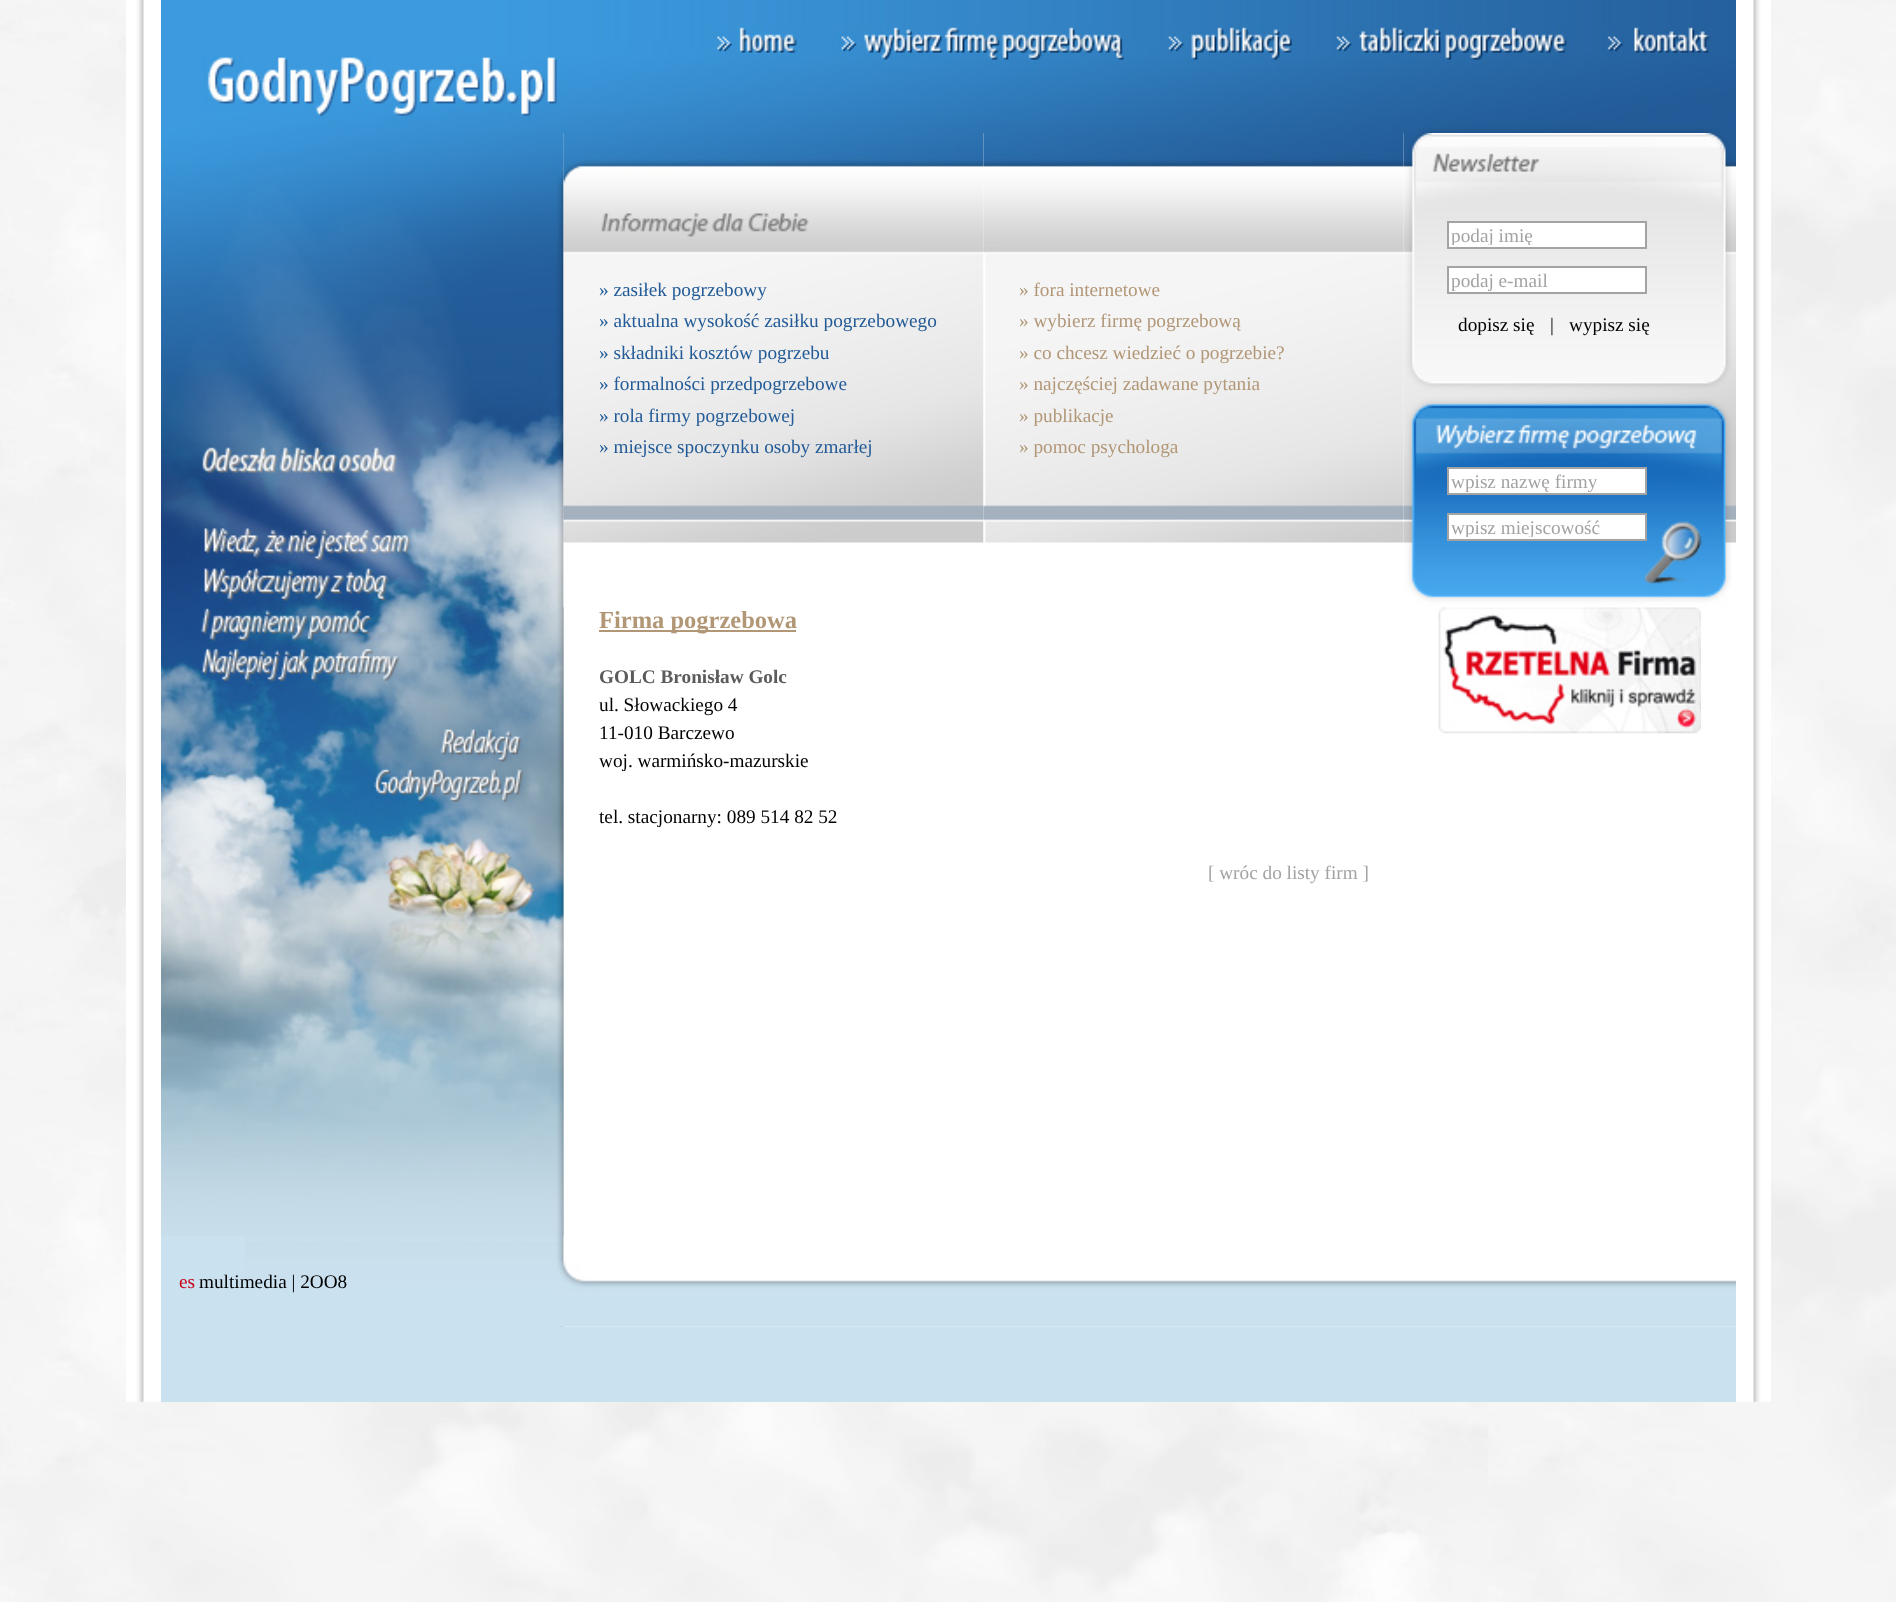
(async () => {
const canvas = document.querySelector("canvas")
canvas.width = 1896
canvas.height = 1602
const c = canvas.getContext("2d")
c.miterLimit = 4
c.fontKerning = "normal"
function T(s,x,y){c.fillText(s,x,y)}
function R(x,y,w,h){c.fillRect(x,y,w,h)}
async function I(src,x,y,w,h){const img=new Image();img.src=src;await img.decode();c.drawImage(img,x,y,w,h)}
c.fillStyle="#fff"
R(0,0,1896,1602)
await I("1.png",0,0,1896,1602)
await I("2.png",126,0,1645,1402)
c.fillStyle="#cae1ef"
R(161,1235,1575,167)
await I("3.png",245,133,1491,1194)
await I("4.png",161,0,1575,133)
await I("5.png",161,133,403,1103)
await I("6.png",563,133,421,475)
c.font="19.25px Liberation Serif"
c.fillStyle="#235b97"
T("» zasiłek pogrzebowy",599,296)
T("» aktualna wysokość zasiłku pogrzebowego",599,327)
T("» składniki kosztów pogrzebu",599,359)
T("» formalności przedpogrzebowe",599,390)
T("» rola firmy pogrzebowej",599,422)
T("» miejsce spoczynku osoby zmarłej",599,453)
await I("7.png",983,133,421,410)
c.fillStyle="#b29777"
T("» fora internetowe",1019,296)
T("» wybierz firmę pogrzebową",1019,327)
T("» co chcesz wiedzieć o pogrzebie?",1019,359)
T("» najczęściej zadawane pytania",1019,390)
T("» publikacje",1019,422)
T("» pomoc psychologa",1019,453)
await I("9.png",1438,607,263,127)
await I("8.png",1403,133,333,475)
c.fillStyle="#fff"
c.beginPath()
c.rect(1448,222,198,26)
c.fill()
c.strokeStyle="#a3a3a3"
c.lineWidth=2
c.stroke()
c.save()
c.beginPath()
c.rect(1451,224,192,21)
c.clip()
c.fillStyle="#a3a3a3"
T("podaj imię",1451,242)
c.restore()
c.beginPath()
c.rect(1448,267,198,26)
c.fill()
c.stroke()
c.save()
c.beginPath()
c.rect(1451,270,192,21)
c.clip()
c.fillStyle="#a3a3a3"
T("podaj e-mail",1451,287)
c.restore()
c.fillStyle="#000"
T("dopisz się",1458,331)
T("|",1550,331)
T("wypisz się",1569,331)
c.fillStyle="#fff"
c.beginPath()
c.rect(1448,468,198,26)
c.fill()
c.stroke()
c.save()
c.beginPath()
c.rect(1451,471,192,21)
c.clip()
c.fillStyle="#a3a3a3"
T("wpisz nazwę firmy",1451,488)
c.restore()
c.beginPath()
c.rect(1448,514,198,26)
c.fill()
c.stroke()
c.save()
c.beginPath()
c.rect(1451,516,192,21)
c.clip()
c.fillStyle="#a3a3a3"
T("wpisz miejscowość",1451,534)
c.restore()
c.fillStyle="#b29777"
R(599,630,197,2)
c.font="bold 24.5px Liberation Serif"
T("Firma pogrzebowa",599,628)
c.font="bold 19.25px Liberation Serif"
c.fillStyle="#5c5b5b"
T("GOLC Bronisław Golc",599,683)
c.font="19.25px Liberation Serif"
c.fillStyle="#000"
T("ul. Słowackiego 4",599,711)
T("11-010 Barczewo",599,739)
T("woj. warmińsko-mazurskie",599,767)
T("tel. stacjonarny: 089 514 82 52",599,823)
c.fillStyle="#a3a3a3"
T("[ wróc do listy firm ]",1208,879)
await I("10.png",245,1260,1491,67)
c.fillStyle="#c60018"
T("es",179,1288)
c.fillStyle="#000"
T("multimedia | 2OO8",199,1288)
})()
